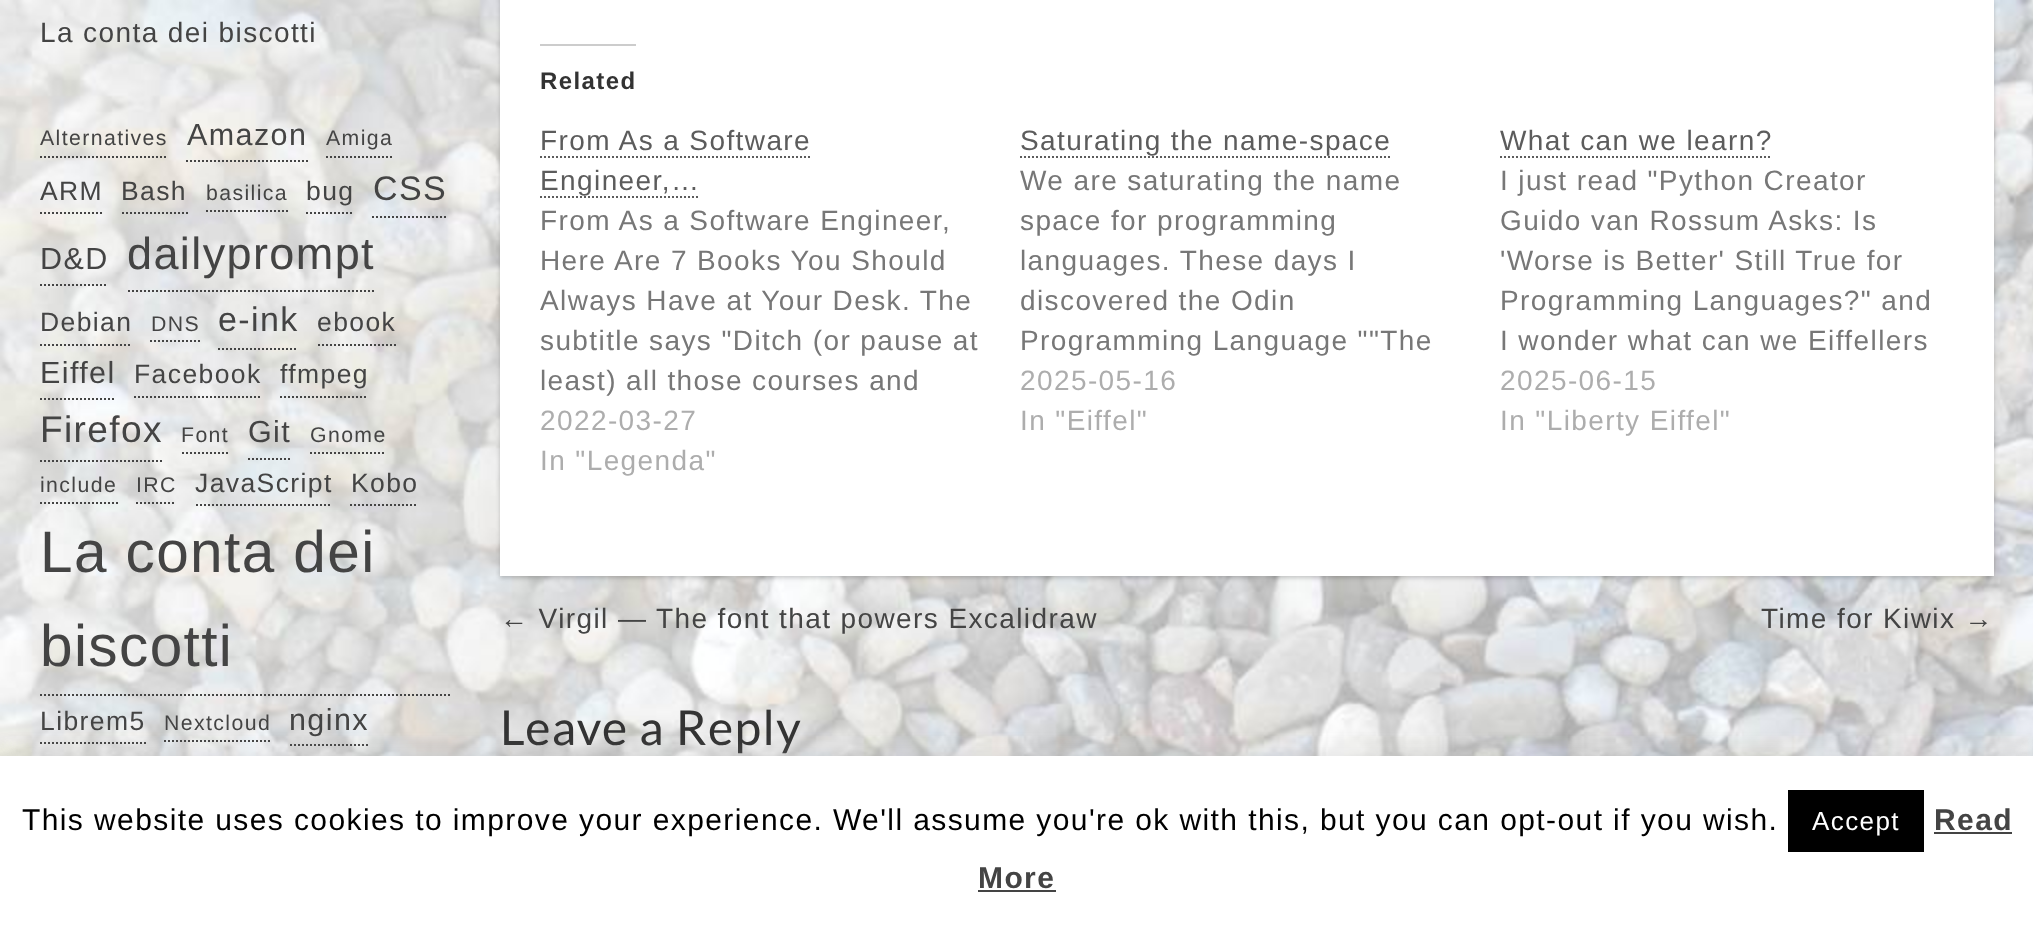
(async () => {
const canvas = document.querySelector("canvas")
canvas.width = 2033
canvas.height = 925
const c = canvas.getContext("2d")
c.miterLimit = 4
c.fontKerning = "normal"
function T(s,x,y){c.fillText(s,x,y)}
function R(x,y,w,h){c.fillRect(x,y,w,h)}
async function I(src,x,y,w,h){const img=new Image();img.src=src;await img.decode();c.drawImage(img,x,y,w,h)}
let path
c.fillStyle="#fff"
R(0,0,2033,925)
await I("1.png",0,0,2033,756)
c.letterSpacing="1.4px"
c.font="28px Liberation Sans"
c.fillStyle="#444"
T("La conta dei biscotti",40,42)
path = new Path2D("M40 157h128")
c.strokeStyle="#444"
c.lineWidth=2
c.setLineDash([2,2])
c.stroke(path)
c.font="21.25px Liberation Sans"
T("Alternatives",40,145)
path = new Path2D("M186 161h122")
c.stroke(path)
c.font="30.5px Liberation Sans"
T("Amazon",187,145)
path = new Path2D("M326 157h68")
c.stroke(path)
c.font="21.25px Liberation Sans"
T("Amiga",326,145)
path = new Path2D("M40 213h62")
c.stroke(path)
c.font="26.5px Liberation Sans"
T("ARM",40,200)
path = new Path2D("M122 213h66")
c.stroke(path)
T("Bash",121,200)
path = new Path2D("M206 211h82")
c.stroke(path)
c.font="21.25px Liberation Sans"
T("basilica",206,200)
path = new Path2D("M306 213h48")
c.stroke(path)
c.font="26.5px Liberation Sans"
T("bug",306,200)
path = new Path2D("M372 217h76")
c.stroke(path)
c.font="34px Liberation Sans"
T("CSS",373,200)
path = new Path2D("M40 285h68")
c.stroke(path)
c.font="30.5px Liberation Sans"
T("D&D",40,269)
path = new Path2D("M128 291h248")
c.stroke(path)
c.font="45px Liberation Sans"
T("dailyprompt",127,269)
path = new Path2D("M40 345h92")
c.stroke(path)
c.font="26.5px Liberation Sans"
T("Debian",40,331)
path = new Path2D("M150 341h50")
c.stroke(path)
c.font="21.25px Liberation Sans"
T("DNS",151,331)
path = new Path2D("M218 349h80")
c.stroke(path)
c.font="34px Liberation Sans"
T("e-ink",218,331)
path = new Path2D("M318 345h78")
c.stroke(path)
c.font="26.5px Liberation Sans"
T("ebook",317,331)
path = new Path2D("M40 399h76")
c.stroke(path)
c.font="30.5px Liberation Sans"
T("Eiffel",40,383)
path = new Path2D("M134 397h128")
c.stroke(path)
c.font="26.5px Liberation Sans"
T("Facebook",134,383)
path = new Path2D("M280 397h88")
c.stroke(path)
T("ffmpeg",280,383)
path = new Path2D("M40 461h122")
c.stroke(path)
c.font="37px Liberation Sans"
T("Firefox",40,442)
path = new Path2D("M182 453h48")
c.stroke(path)
c.font="21.25px Liberation Sans"
T("Font",181,442)
path = new Path2D("M248 459h44")
c.stroke(path)
c.font="30.5px Liberation Sans"
T("Git",248,442)
path = new Path2D("M310 453h76")
c.stroke(path)
c.font="21.25px Liberation Sans"
T("Gnome",310,442)
path = new Path2D("M40 503h78")
c.stroke(path)
T("include",40,492)
path = new Path2D("M136 503h40")
c.stroke(path)
T("IRC",136,492)
path = new Path2D("M196 505h136")
c.stroke(path)
c.font="26.5px Liberation Sans"
T("JavaScript",195,492)
path = new Path2D("M350 505h68")
c.stroke(path)
T("Kobo",351,492)
path = new Path2D("M40 695h410")
c.stroke(path)
c.font="58.5px Liberation Sans"
T("La conta dei",40,572)
T("biscotti",40,666)
path = new Path2D("M40 743h106")
c.stroke(path)
c.font="26.5px Liberation Sans"
T("Librem5",40,730)
path = new Path2D("M164 741h108")
c.stroke(path)
c.font="21.25px Liberation Sans"
T("Nextcloud",164,730)
path = new Path2D("M290 745h80")
c.stroke(path)
c.font="30.5px Liberation Sans"
T("nginx",289,730)
c.fillStyle="#00000033"
c.filter="blur(2px)"
c.beginPath()
c.rect(500,-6,1494,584)
c.fill()
c.filter="none"
c.fillStyle="#fff"
R(500,0,1494,576)
c.fillStyle="#ccc"
R(540,44,96,2)
c.font="bold 24px Liberation Sans"
c.fillStyle="#333"
T("Related",540,89)
c.font="28px Liberation Sans"
c.fillStyle="#5c5c5c"
T("From As a Software",540,150)
path = new Path2D("M540 157h272")
c.strokeStyle="#5c5c5c"
c.stroke(path)
T("Engineer,…",540,190)
path = new Path2D("M540 197h160")
c.stroke(path)
c.fillStyle="#777"
T("From As a Software Engineer,",540,230)
T("Here Are 7 Books You Should",540,270)
T("Always Have at Your Desk. The",540,310)
T("subtitle says \"Ditch (or pause at",540,350)
T("least) all those courses and",540,390)
c.fillStyle="#adadad"
T("2022-03-27",540,430)
T("In \"Legenda\"",540,470)
c.fillStyle="#5c5c5c"
T("Saturating the name-space",1020,150)
path = new Path2D("M1020 157h372")
c.stroke(path)
c.fillStyle="#777"
T("We are saturating the name",1020,190)
T("space for programming",1020,230)
T("languages. These days I",1020,270)
T("discovered the Odin",1020,310)
T("Programming Language \"\"The",1020,350)
c.fillStyle="#adadad"
T("2025-05-16",1020,390)
T("In \"Eiffel\"",1020,430)
c.fillStyle="#5c5c5c"
T("What can we learn?",1500,150)
path = new Path2D("M1500 157h272")
c.stroke(path)
c.fillStyle="#777"
T("I just read \"Python Creator",1500,190)
T("Guido van Rossum Asks: Is",1500,230)
T("'Worse is Better' Still True for",1500,270)
T("Programming Languages?\" and",1500,310)
T("I wonder what can we Eiffellers",1500,350)
c.fillStyle="#adadad"
T("2025-06-15",1500,390)
T("In \"Liberty Eiffel\"",1500,430)
c.fillStyle="#444"
T("← Virgil — The font that powers Excalidraw",500,628)
T("Time for Kiwix →",1761,628)
c.font="48px Lato"
c.fillStyle="#333"
T("Leave a Reply",500,745)
c.fillStyle="#acabab4d"
c.filter="blur(10px)"
c.beginPath()
c.rect(0,754,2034,170)
c.fill()
c.filter="none"
c.fillStyle="#fff"
R(0,756,2033,169)
c.font="30px Liberation Sans"
c.fillStyle="#000"
T("This website uses cookies to improve your experience. We'll assume you're ok with this, but you can opt-out if you wish.",22,830)
R(1788,790,136,62)
c.font="26px Liberation Sans"
c.fillStyle="#fff"
T("Accept",1812,830)
c.font="bold 30px Liberation Sans"
c.fillStyle="#444"
T("Read",1934,830)
R(1934,832,78,2)
T("More",978,888)
R(978,890,78,2)
})()
